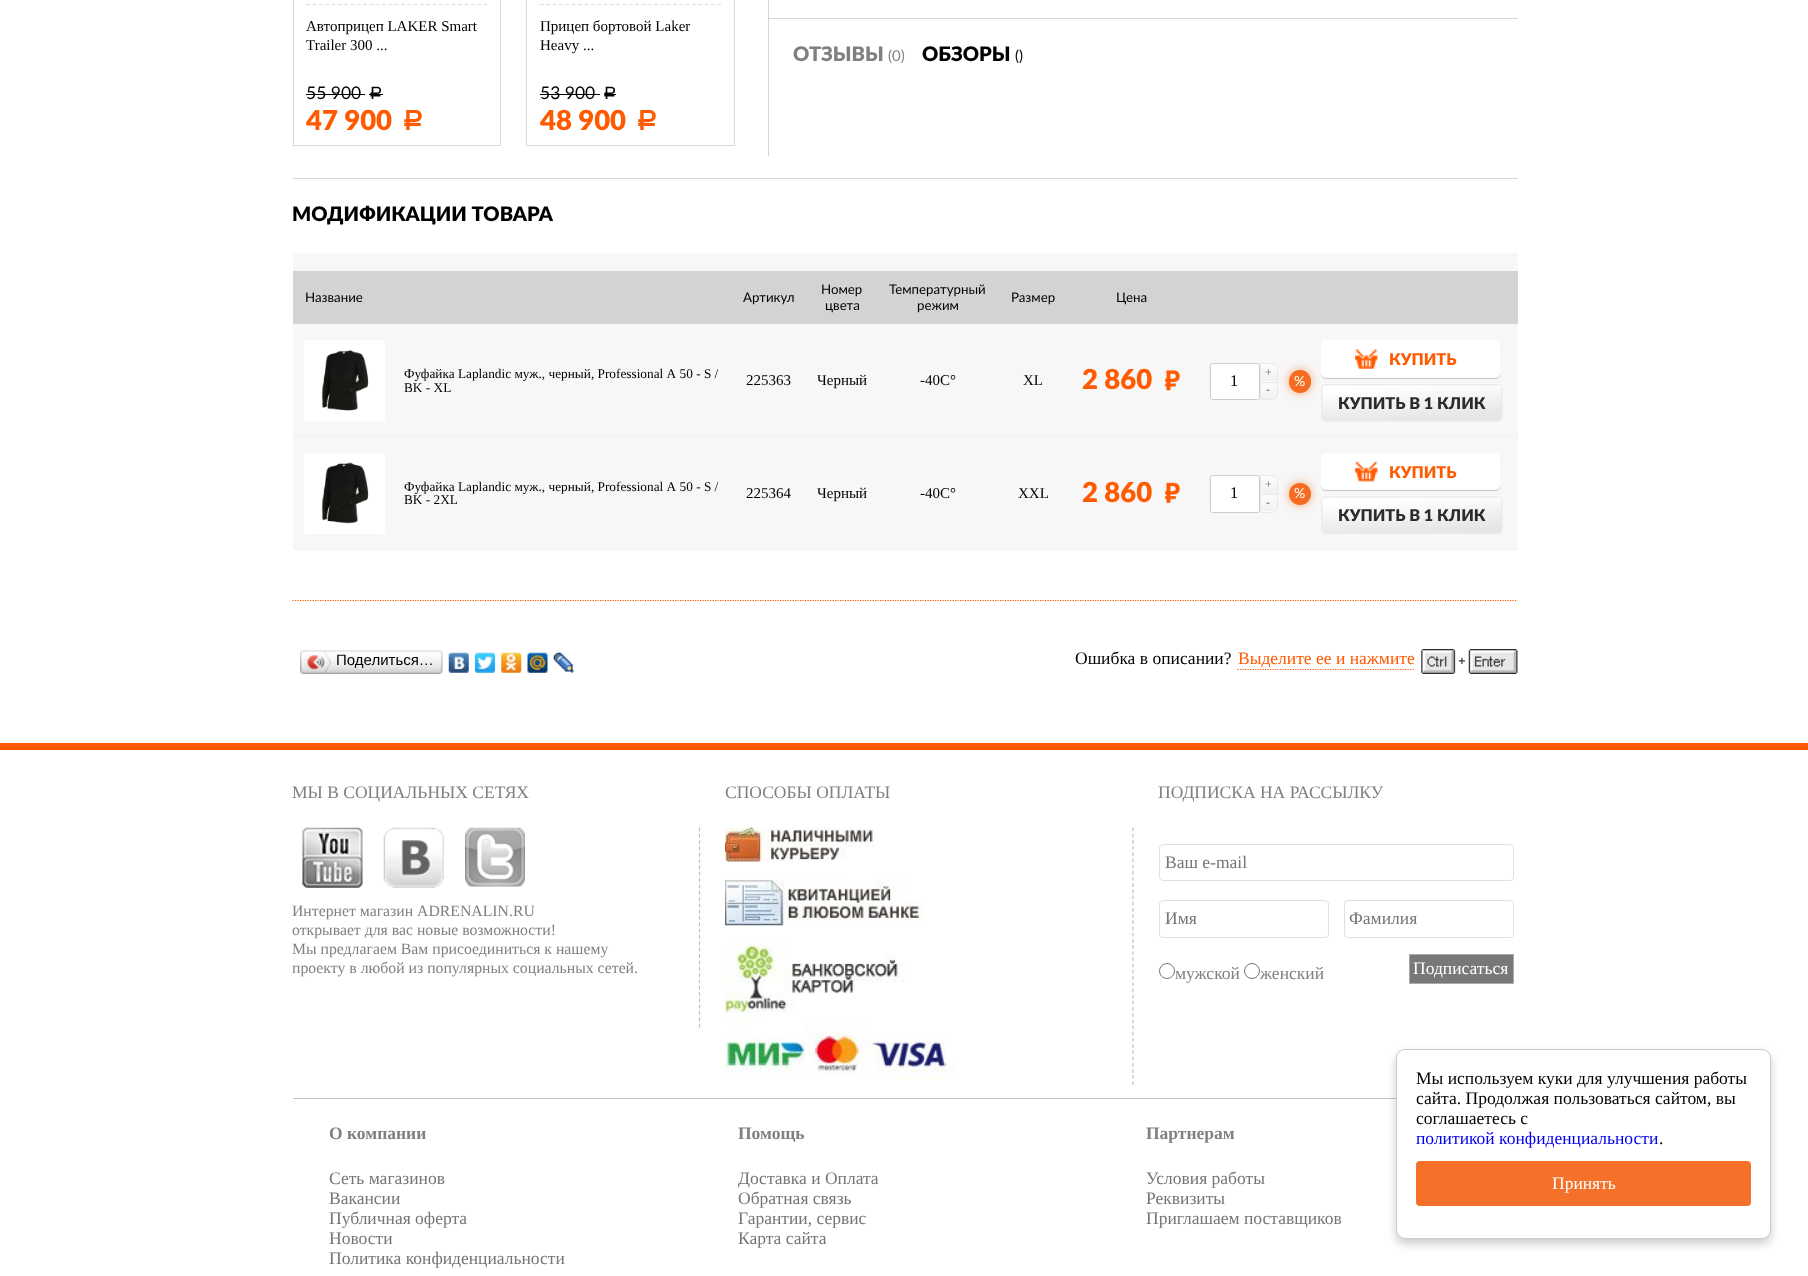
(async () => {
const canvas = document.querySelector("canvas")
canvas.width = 1808
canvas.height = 1276
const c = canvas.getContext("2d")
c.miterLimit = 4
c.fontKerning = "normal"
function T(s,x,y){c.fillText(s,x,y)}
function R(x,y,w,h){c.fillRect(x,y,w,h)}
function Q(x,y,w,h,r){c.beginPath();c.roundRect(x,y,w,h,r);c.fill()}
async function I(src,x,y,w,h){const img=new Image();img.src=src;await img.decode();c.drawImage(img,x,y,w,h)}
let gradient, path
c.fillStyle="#fff"
R(0,0,1808,1276)
c.fillStyle="#d6d6d6"
R(293,178,1225,1)
c.strokeStyle="#dbdbdb"
c.strokeRect(293.5,-.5,207,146)
path = new Path2D("M306 4.5h181.5")
c.lineWidth=1.2
c.setLineDash([3.75,2.59])
c.stroke(path)
c.font="15px Liberation Serif"
c.fillStyle="#000"
T("Автоприцеп LAKER Smart",306,31)
T("Trailer 300 ...",306,50)
c.font="17.5px Lato"
T("55 900",306,99)
R(306,94,59,1)
c.font="17.5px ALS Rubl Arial"
T("Р",369,99)
R(369,94,14,1)
c.font="900 27.5px Lato"
c.fillStyle="#ff5a00"
T("47 900",306,130)
c.font="bold 27.5px ALS Rubl Arial"
T("Р",402,130)
c.lineWidth=1
c.setLineDash([])
c.strokeRect(526.5,-.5,208,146)
path = new Path2D("M540 4.5h181")
c.lineWidth=1.2
c.setLineDash([3.75,2.59])
c.stroke(path)
c.font="15px Liberation Serif"
c.fillStyle="#000"
T("Прицеп бортовой Laker",540,31)
T("Heavy ...",540,50)
c.font="17.5px Lato"
T("53 900",540,99)
R(540,94,60,1)
c.font="17.5px ALS Rubl Arial"
T("Р",603,99)
R(604,94,12,1)
c.font="900 27.5px Lato"
c.fillStyle="#ff5a00"
T("48 900",540,130)
c.font="bold 27.5px ALS Rubl Arial"
T("Р",636,130)
c.fillStyle="#d6d6d6"
R(768,0,1,156)
R(769,18,749,1)
c.font="900 20px Lato"
c.fillStyle="#808080"
T("ОТЗЫВЫ",793,61)
c.font="15px Lato"
T("(0)",888,61)
c.font="900 20px Lato"
c.fillStyle="#000"
T("ОБЗОРЫ",922,61)
c.font="15px Lato"
T("()",1015,61)
c.font="900 20px Lato"
T("МОДИФИКАЦИИ ТОВАРА",292,221)
c.fillStyle="#f7f7f7"
R(293,253,1225,296)
c.fillStyle="#d3d3d3"
R(293,271,1225,53)
c.font="13.3px Lato"
c.fillStyle="#000"
T("Название",305,302)
T("Артикул",743,302)
T("Номер",821,294)
T("цвета",825,310)
T("Температурный",889,294)
T("режим",917,310)
T("Размер",1011,302)
T("Цена",1116,302)
c.fillStyle="#f0f0f0"
R(293,436,1225,1)
c.fillStyle="#f8f8f8"
R(293,436,1,2)
await I("1.png",304,340,81,82)
c.font="13.3px Liberation Serif"
c.fillStyle="#000"
T("Фуфайка Laplandic муж., черный, Professional А 50 - S /",404,378)
T("BK - XL",404,392)
c.font="15px Liberation Serif"
T("225363",746,385)
T("Черный",817,385)
T("-40С°",920,385)
T("XL",1023,385)
c.font="900 27.5px Lato"
c.fillStyle="#ff5a00"
T("2 860",1082,389)
await I("2.png",1165,370,15,21)
c.save()
c.beginPath()
c.roundRect(1260,380,18,20,[0,0,6,0])
c.clip()
gradient = c.createLinearGradient(1269,381,1269,399)
gradient.addColorStop(0,"#fcfcfc")
gradient.addColorStop(1,"#f1f1f1")
c.fillStyle = gradient
R(1261,383,17,16)
c.restore()
c.beginPath()
c.roundRect(1260.5,380.5,17,19,[0,0,5.5,0])
c.strokeStyle="#e9e9e9"
c.lineWidth=1
c.setLineDash([])
c.stroke()
c.save()
c.beginPath()
c.roundRect(1260,363,18,20,[0,6,0,0])
c.clip()
gradient = c.createLinearGradient(1269,364,1269,381)
gradient.addColorStop(0,"#fcfcfc")
gradient.addColorStop(1,"#f1f1f1")
c.fillStyle = gradient
R(1261,364,17,17)
c.restore()
gradient = c.createLinearGradient(1269,381,1269,399)
gradient.addColorStop(0,"#fcfcfc")
gradient.addColorStop(1,"#f1f1f1")
c.fillStyle = gradient
R(1260,381,18,1)
c.beginPath()
c.roundRect(1260.5,363.5,17,19,[0,5.5,0,0])
c.stroke()
c.font="12px Liberation Serif"
c.fillStyle="#656565"
T("+",1265,376)
c.fillStyle="#fff"
c.beginPath()
c.roundRect(1210.5,363.5,49,36,2)
c.fill()
c.strokeStyle="#ccc"
c.stroke()
c.font="16.25px Liberation Serif"
c.fillStyle="#000"
T("1",1230,386)
c.font="12px Liberation Serif"
c.fillStyle="#656565"
T("-",1266,393)
c.fillStyle="#00000033"
c.filter="blur(0.5px)"
c.beginPath()
c.roundRect(1321,341,179,38,5)
c.fill()
c.filter="none"
c.fillStyle="#fff"
Q(1321,340,179,38,5)
await I("4.png",1321,384,182,38)
c.fillStyle="#f56c2099"
c.filter="blur(5px)"
c.beginPath()
c.roundRect(1289,370,22,23,11)
c.fill()
c.filter="none"
c.fillStyle="#f56c20"
Q(1289,370,22,23,11)
c.font="14px Lato"
c.fillStyle="#fff"
T("%",1294,386)
await I("3.png",1355,349,23,20)
c.font="900 16.25px Lato"
c.fillStyle="#ff5a00"
T("КУПИТЬ",1389,365)
c.fillStyle="#2b2b2d"
T("КУПИТЬ В 1 КЛИК",1338,409)
c.fillStyle="#f0f0f0"
R(293,549,1225,1)
c.fillStyle="#f8f8f8"
R(293,549,1,1)
await I("5.png",304,453,81,81)
c.font="13.3px Liberation Serif"
c.fillStyle="#000"
T("Фуфайка Laplandic муж., черный, Professional А 50 - S /",404,491)
T("BK - 2XL",404,504)
c.font="15px Liberation Serif"
T("225364",746,498)
T("Черный",817,498)
T("-40С°",920,498)
T("XXL",1018,498)
c.font="900 27.5px Lato"
c.fillStyle="#ff5a00"
T("2 860",1082,502)
await I("6.png",1165,482,15,21)
c.save()
c.beginPath()
c.roundRect(1260,493,18,20,[0,0,6,0])
c.clip()
gradient = c.createLinearGradient(1269,494,1269,511)
gradient.addColorStop(0,"#fcfcfc")
gradient.addColorStop(1,"#f1f1f1")
c.fillStyle = gradient
R(1261,495,17,16)
gradient = c.createLinearGradient(1269,511,1269,529)
gradient.addColorStop(0,"#fcfcfc")
gradient.addColorStop(1,"#f1f1f1")
c.fillStyle = gradient
R(1260,511,18,2)
c.restore()
c.beginPath()
c.roundRect(1260.5,493.5,17,19,[0,0,5.5,0])
c.strokeStyle="#e9e9e9"
c.stroke()
c.save()
c.beginPath()
c.roundRect(1260,475,18,20,[0,6,0,0])
c.clip()
gradient = c.createLinearGradient(1269,476,1269,494)
gradient.addColorStop(0,"#fcfcfc")
gradient.addColorStop(1,"#f1f1f1")
c.fillStyle = gradient
R(1261,476,17,18)
c.restore()
c.beginPath()
c.roundRect(1260.5,475.5,17,19,[0,5.5,0,0])
c.stroke()
c.font="12px Liberation Serif"
c.fillStyle="#656565"
T("+",1265,488)
c.fillStyle="#fff"
c.beginPath()
c.roundRect(1210.5,475.5,49,37,2)
c.fill()
c.strokeStyle="#ccc"
c.stroke()
c.font="16.25px Liberation Serif"
c.fillStyle="#000"
T("1",1230,498)
c.font="12px Liberation Serif"
c.fillStyle="#656565"
T("-",1266,506)
c.fillStyle="#00000033"
c.filter="blur(0.5px)"
c.beginPath()
c.roundRect(1321,454,179,37,5)
c.fill()
c.filter="none"
c.fillStyle="#fff"
Q(1321,453,179,37,5)
await I("8.png",1321,496,182,38)
c.fillStyle="#f56c2099"
c.filter="blur(5px)"
c.beginPath()
c.roundRect(1289,483,22,22,11)
c.fill()
c.filter="none"
c.fillStyle="#f56c20"
c.beginPath()
c.arc(1300,494,11,0,7)
c.fill()
c.font="14px Lato"
c.fillStyle="#fff"
T("%",1294,498)
await I("7.png",1355,461,23,21)
c.font="900 16.25px Lato"
c.fillStyle="#ff5a00"
T("КУПИТЬ",1389,478)
c.fillStyle="#2b2b2d"
T("КУПИТЬ В 1 КЛИК",1338,521)
path = new Path2D("M292.5 600.5h1225")
c.strokeStyle="#ff5a00"
c.lineWidth=1.2
c.setLineDash([1.25,1.25])
c.stroke(path)
await I("9.png",303,650,136,24)
await I("10.png",300,650,4,24)
await I("11.png",307,651,26,22)
c.font="15px Liberation Sans"
c.fillStyle="#000"
T("Поделиться…",336,665)
await I("12.png",438,650,5,24)
await I("13.png",448,652,21,21)
await I("14.png",475,652,20,21)
await I("15.png",501,652,21,21)
await I("16.png",527,652,21,21)
await I("17.png",553,652,21,21)
c.font="17.5px Liberation Serif"
T("Ошибка в описании?",1075,664)
path = new Path2D("M1237.5 669.5h177.5")
c.stroke(path)
c.fillStyle="#ff5a00"
T("Выделите ее и нажмите",1238,664)
await I("18.png",1421,649,97,25)
R(0,743,1808,7)
c.fillStyle="#808080"
T("МЫ В СОЦИАЛЬНЫХ СЕТЯХ",292,798)
path = new Path2D("M699.5 827.5v200")
c.strokeStyle="#c1c1c1"
c.setLineDash([3.75,2.58])
c.stroke(path)
await I("19.png",302,827,61,61)
await I("20.png",383,827,61,61)
await I("21.png",465,827,60,60)
c.font="15.75px Liberation Serif"
T("Интернет магазин ADRENALIN.RU",292,916)
T("открывает для вас новые возможности!",292,935)
T("Мы предлагаем Вам присоединиться к нашему",292,954)
T("проекту в любой из популярных социальных сетей.",292,973)
c.font="17.5px Liberation Serif"
T("СПОСОБЫ ОПЛАТЫ",725,798)
path = new Path2D("M1133 827.5v257.5")
c.setLineDash([3.75,2.44])
c.stroke(path)
await I("22.png",725,827,150,35)
await I("23.png",725,879,200,47)
await I("24.png",725,943,230,137)
T("ПОДПИСКА НА РАССЫЛКУ",1158,798)
c.beginPath()
c.roundRect(1159.5,844.5,354,36,3.5)
c.strokeStyle="#e0e0e0"
c.lineWidth=1
c.setLineDash([])
c.stroke()
c.fillStyle="#757575"
T("Ваш e-mail",1165,868)
c.beginPath()
c.roundRect(1159.5,900.5,169,37,3.5)
c.stroke()
T("Имя",1165,924)
c.beginPath()
c.roundRect(1344.5,900.5,169,37,3.5)
c.stroke()
T("Фамилия",1349,924)
c.beginPath()
c.arc(1167,971,7.5,0,7)
c.strokeStyle="#767676"
c.stroke()
c.fillStyle="#808080"
T("мужской",1175,979)
c.beginPath()
c.arc(1252,971,7.5,0,7)
c.stroke()
T("женский",1260,979)
c.fillStyle="#787878"
c.beginPath()
c.rect(1409.5,954.5,104,29)
c.fill()
c.strokeStyle="#aaa"
c.stroke()
c.fillStyle="#fff"
T("Подписаться",1413,974)
c.fillStyle="#c3c3c3"
R(293,1098,1103,1)
c.font="bold 17.5px Liberation Serif"
c.fillStyle="#808080"
T("О компании",329,1139)
c.font="17.5px Liberation Serif"
c.fillStyle="#757575"
T("Сеть магазинов",329,1184)
T("Вакансии",329,1204)
T("Публичная оферта",329,1224)
T("Новости",329,1244)
T("Политика конфиденциальности",329,1264)
c.font="bold 17.5px Liberation Serif"
c.fillStyle="#808080"
T("Помощь",738,1139)
c.font="17.5px Liberation Serif"
c.fillStyle="#757575"
T("Доставка и Оплата",738,1184)
T("Обратная связь",738,1204)
T("Гарантии, сервис",738,1224)
T("Карта сайта",738,1244)
c.font="bold 17.5px Liberation Serif"
c.fillStyle="#808080"
T("Партнерам",1146,1139)
c.font="17.5px Liberation Serif"
c.fillStyle="#757575"
T("Условия работы",1146,1184)
T("Реквизиты",1146,1204)
T("Приглашаем поставщиков",1146,1224)
c.fillStyle="#00000033"
c.filter="blur(5px)"
c.beginPath()
c.roundRect(1396,1054,375,190,9)
c.fill()
c.filter="none"
c.fillStyle="#fff"
c.beginPath()
c.roundRect(1396.5,1049.5,374,189,8.5)
c.fill()
c.strokeStyle="#ccc"
c.stroke()
c.fillStyle="#000"
T("Мы используем куки для улучшения работы",1416,1084)
T("сайта. Продолжая пользоваться сайтом, вы",1416,1104)
T("соглашаетесь с",1416,1124)
c.fillStyle="#00e"
T("политикой конфиденциальности",1416,1144)
c.fillStyle="#000"
T(".",1659,1144)
c.fillStyle="#f57028"
Q(1416,1161,335,45,4)
c.fillStyle="#fff"
T("Принять",1552,1189)
})()
